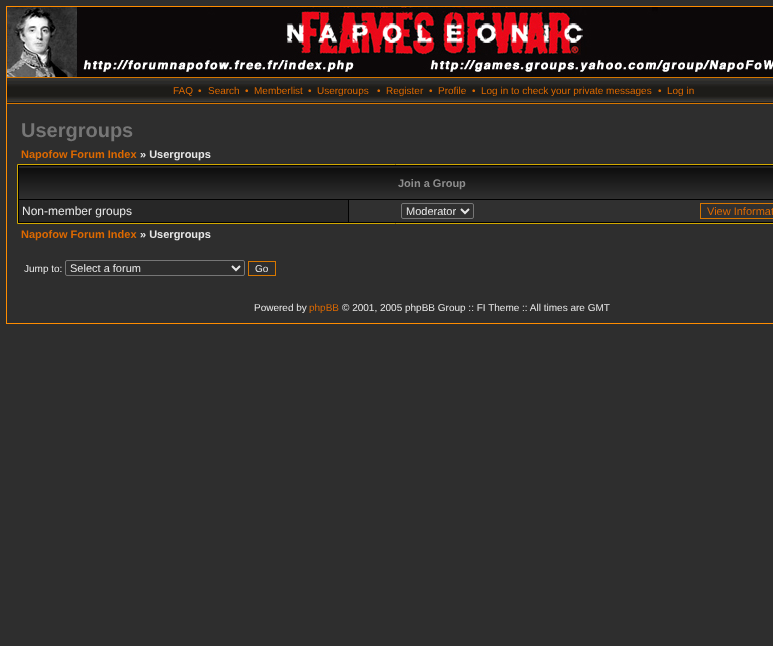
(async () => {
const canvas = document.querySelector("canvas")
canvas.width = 773
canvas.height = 646
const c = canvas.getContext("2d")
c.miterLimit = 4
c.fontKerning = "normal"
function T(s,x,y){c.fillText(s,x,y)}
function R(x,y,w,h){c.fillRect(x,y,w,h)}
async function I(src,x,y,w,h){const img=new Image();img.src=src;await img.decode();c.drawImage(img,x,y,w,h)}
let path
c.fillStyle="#2e2e2e"
R(0,0,773,646)
c.strokeStyle="#ff8c00"
c.strokeRect(6.5,6.5,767,317)
await I("1.png",7,7,766,70)
c.fillStyle="#1d1c19"
R(7,102,766,1)
await I("2.png",7,78,766,24)
c.fillStyle="#d77700"
R(7,77,766,1)
R(7,103,766,1)
c.font="10px Liberation Sans"
c.fillStyle="#dd6900"
T("FAQ",173,94)
T("•",198,94)
T("Search",208,94)
T("•",245,94)
T("Memberlist",254,94)
T("•",308,94)
T("Usergroups",317,94)
T("•",377,94)
T("Register",386,94)
T("•",429,94)
T("Profile",438,94)
T("•",472,94)
T("Log in to check your private messages",481,94)
T("•",658,94)
T("Log in",667,94)
c.font="bold 20px Liberation Sans"
c.fillStyle="#767676"
T("Usergroups",21,137)
c.font="bold 11px Liberation Sans"
c.fillStyle="#dd6900"
T("Napofow Forum Index",21,158)
c.fillStyle="#e7e7e7"
T("» Usergroups",140,158)
c.fillStyle="#010101"
c.beginPath()
c.rect(17.5,164.5,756,59)
c.fill()
c.strokeStyle="#d2a900"
c.stroke()
await I("3.png",19,166,754,33)
c.fillStyle="#8e8e8e"
T("Join a Group",398,187)
c.fillStyle="#272727"
R(19,200,329,22)
c.font="12px Liberation Sans"
c.fillStyle="#e7e7e7"
T("Non-member groups",22,215)
c.fillStyle="#303030"
R(349,200,424,22)
c.beginPath()
c.roundRect(401.5,203.5,72,15,1.5)
c.strokeStyle="#767676"
c.stroke()
path = new Path2D("M461 209l4 4l4-4")
c.strokeStyle="#e7e7e7"
c.lineWidth=2
c.stroke(path)
c.font="11px Liberation Sans"
c.fillStyle="#e7e7e7"
T("Moderator",406,215)
c.strokeStyle="#d77700"
c.lineWidth=1
c.strokeRect(700.5,203.5,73,15)
c.fillStyle="#dd6900"
T("View Informat",707,215)
c.font="bold 11px Liberation Sans"
T("Napofow Forum Index",21,238)
c.fillStyle="#e7e7e7"
T("» Usergroups",140,238)
c.font="10px Liberation Sans"
T("Jump to:",24,272)
c.beginPath()
c.roundRect(65.5,260.5,179,15,1.5)
c.strokeStyle="#767676"
c.stroke()
path = new Path2D("M232 266l4 4l4-4")
c.strokeStyle="#e7e7e7"
c.lineWidth=2
c.stroke(path)
c.font="11px Liberation Sans"
T("Select a forum",70,272)
c.strokeStyle="#d77700"
c.lineWidth=1
c.strokeRect(248.5,261.5,27,14)
c.font="10px Liberation Sans"
T("Go",255,272)
T("Powered by",254,311)
c.fillStyle="#dd6900"
T("phpBB",309,311)
c.fillStyle="#e7e7e7"
T("© 2001, 2005 phpBB Group :: FI Theme :: All times are GMT",342,311)
})()
